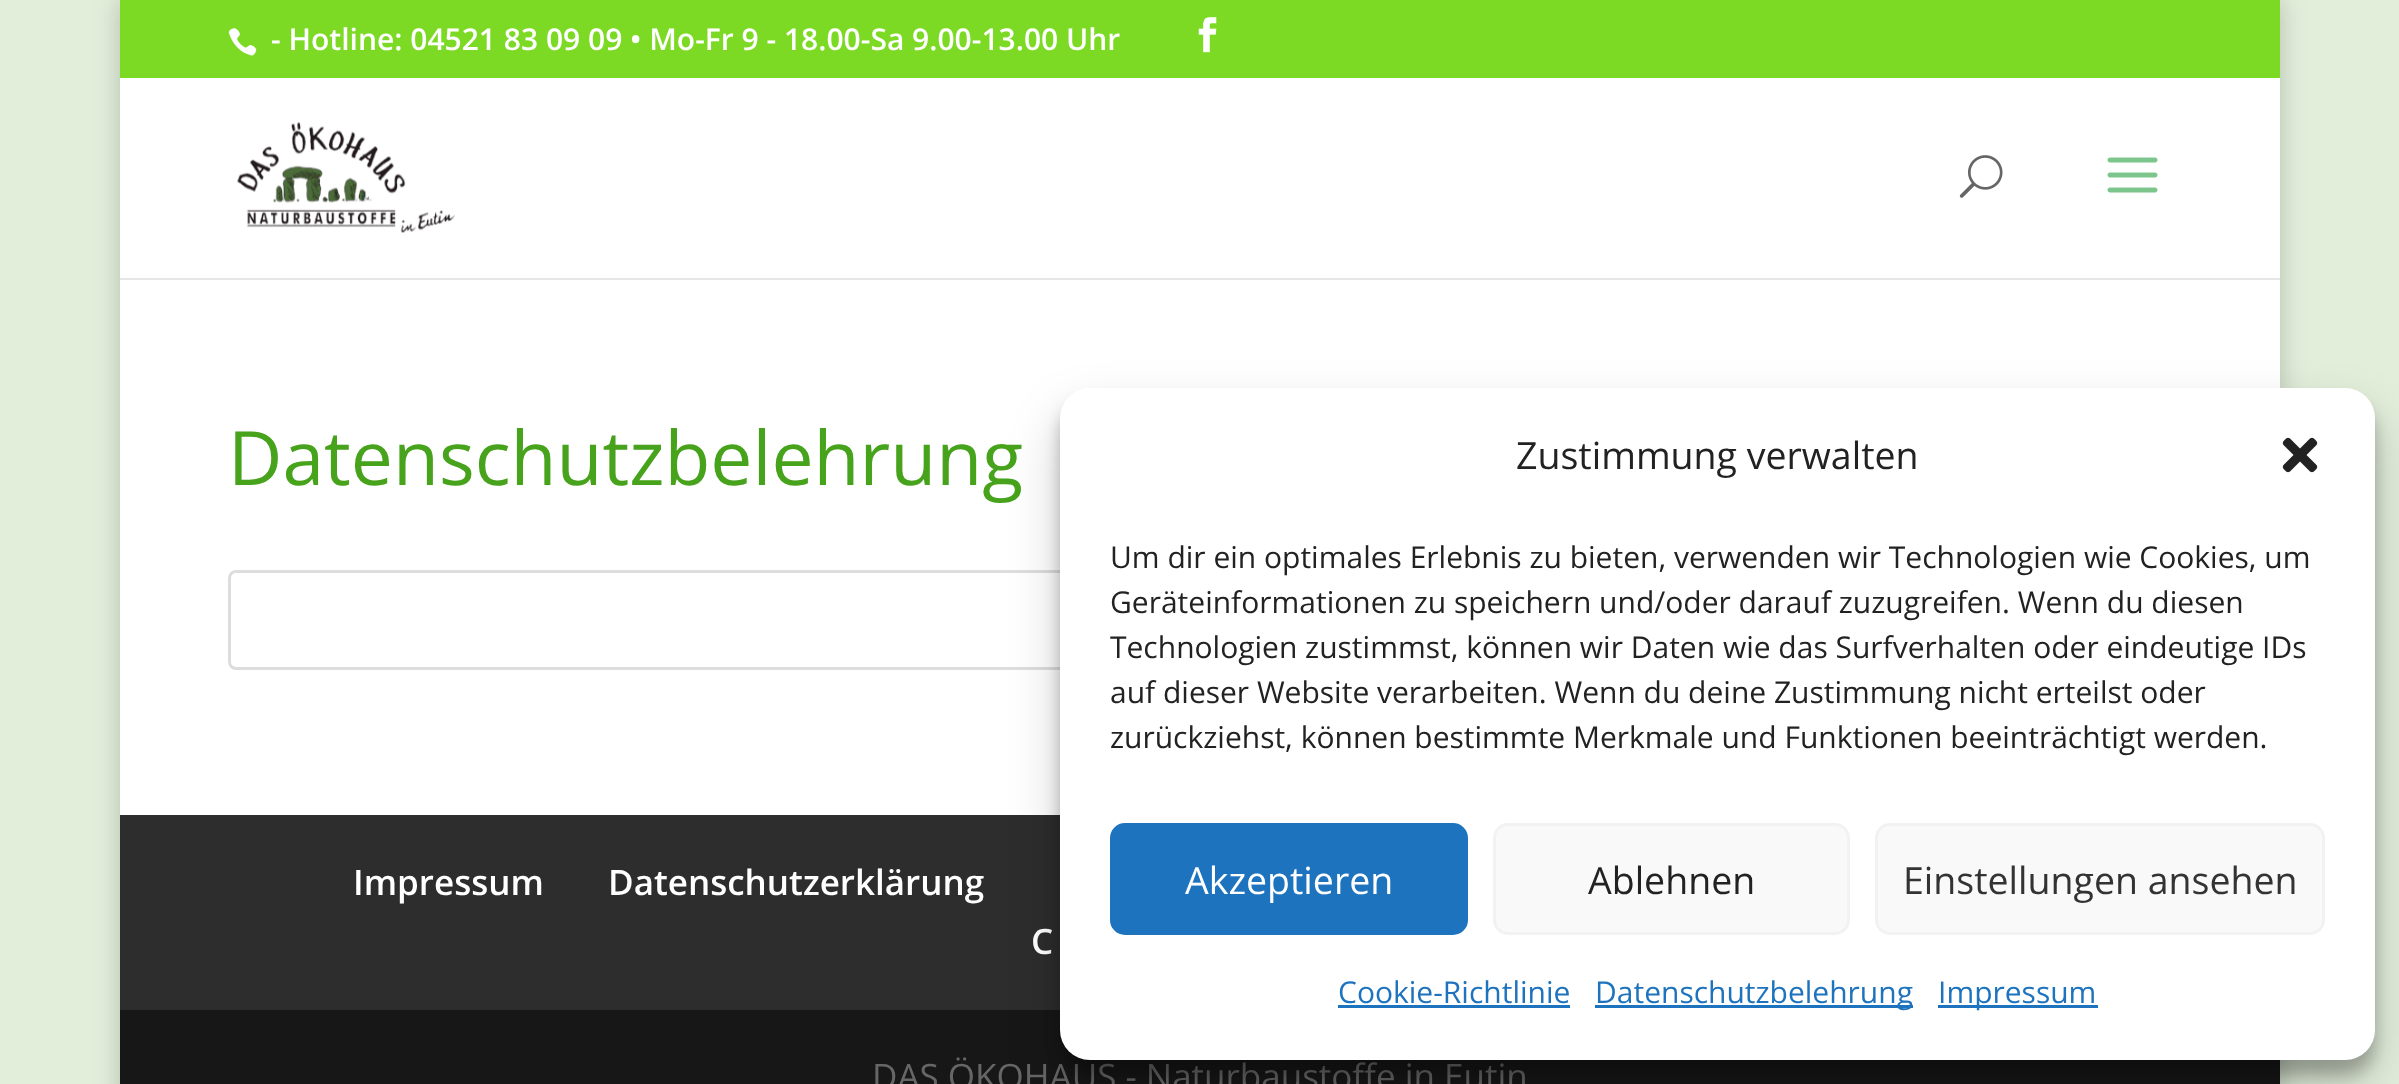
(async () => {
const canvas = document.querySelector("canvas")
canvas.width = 2399
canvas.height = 1084
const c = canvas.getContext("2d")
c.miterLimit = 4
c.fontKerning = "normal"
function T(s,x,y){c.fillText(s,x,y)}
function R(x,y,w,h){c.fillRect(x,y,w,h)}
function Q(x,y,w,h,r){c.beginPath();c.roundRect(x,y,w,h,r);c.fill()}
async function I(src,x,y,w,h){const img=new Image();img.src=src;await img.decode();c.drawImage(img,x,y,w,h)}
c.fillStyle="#e2edda"
R(0,0,2399,1084)
c.fillStyle="#00000033"
c.filter="blur(12.5px)"
c.beginPath()
c.rect(120,0,2160,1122)
c.fill()
c.filter="none"
c.fillStyle="#7cda24"
R(120,0,2160,78)
await I("1.png",228,28,29,28)
c.font="600 30px Open Sans"
c.fillStyle="#fff"
T("- Hotline: 04521 83 09 09 • Mo-Fr 9 - 18.00-Sa 9.00-13.00 Uhr",271,50)
await I("2.png",1198,17,19,36)
c.fillStyle="#e6e6e6"
R(120,278,2160,2)
c.fillStyle="#fff"
R(120,78,2160,200)
await I("3.png",237,122,218,111)
await I("4.png",1959,155,44,43)
await I("5.png",2107,157,51,36)
R(120,280,2160,535)
c.font="75px Open Sans"
c.fillStyle="#46a31b"
T("Datenschutzbelehrung",228,485)
c.beginPath()
c.roundRect(229.5,571.5,1942,97,6.5)
c.strokeStyle="#ddd"
c.lineWidth=3
c.stroke()
c.fillStyle="#2d2d2d"
R(120,815,940,195)
c.font="600 35px Open Sans"
c.fillStyle="#fff"
T("Impressum",353,895)
T("Datenschutzerklärung",608,895)
T("C",1031,954)
c.fillStyle="#171717"
R(120,1010,2160,74)
c.font="35px Open Sans"
c.fillStyle="#666"
T("DAS ÖKOHAUS - Naturbaustoffe in Eutin",872,1089)
c.fillStyle="#0000003b"
c.filter="blur(7.5px)"
c.beginPath()
c.roundRect(1060,403,1315,672,30)
c.fill()
c.filter="none"
c.fillStyle="#00000030"
c.filter="blur(25px)"
c.beginPath()
c.roundRect(1060,413,1315,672,30)
c.fill()
c.filter="none"
c.fillStyle="#fff"
Q(1060,388,1315,672,30)
c.font="37.5px Open Sans"
c.fillStyle="#222"
T("Zustimmung verwalten",1516,469)
await I("6.png",2282,437,36,36)
c.font="30px Open Sans"
T("Um dir ein optimales Erlebnis zu bieten, verwenden wir Technologien wie Cookies, um",1110,568)
T("Geräteinformationen zu speichern und/oder darauf zuzugreifen. Wenn du diesen",1110,613)
T("Technologien zustimmst, können wir Daten wie das Surfverhalten oder eindeutige IDs",1110,658)
T("auf dieser Website verarbeiten. Wenn du deine Zustimmung nicht erteilst oder",1110,703)
T("zurückziehst, können bestimmte Merkmale und Funktionen beeinträchtigt werden.",1110,748)
c.fillStyle="#1e73be"
c.beginPath()
c.roundRect(1111.5,824.5,355,109,13.5)
c.fill()
c.strokeStyle="#1e73be"
c.stroke()
c.font="37.5px Open Sans"
c.fillStyle="#fff"
T("Akzeptieren",1185,894)
c.fillStyle="#f9f9f9"
c.beginPath()
c.roundRect(1494.5,824.5,354,109,13.5)
c.fill()
c.strokeStyle="#f2f2f2"
c.stroke()
c.fillStyle="#222"
T("Ablehnen",1588,894)
c.fillStyle="#f9f9f9"
c.beginPath()
c.roundRect(1876.5,824.5,447,109,13.5)
c.fill()
c.stroke()
c.fillStyle="#333"
T("Einstellungen ansehen",1903,894)
c.font="30px Open Sans"
c.fillStyle="#1e73be"
T("Cookie-Richtlinie",1338,1003)
R(1338,1005,232,3)
R(1595,1005,318,3)
T("Datenschutzbelehrung",1595,1003)
R(1938,1005,160,3)
T("Impressum",1938,1003)
})()
